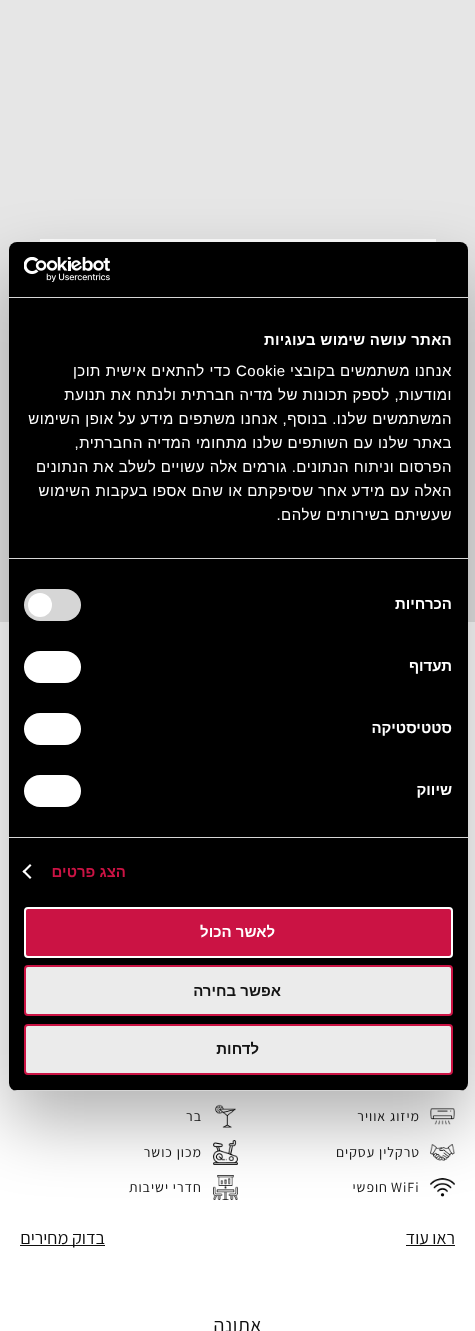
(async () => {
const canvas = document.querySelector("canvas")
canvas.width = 475
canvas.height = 1331
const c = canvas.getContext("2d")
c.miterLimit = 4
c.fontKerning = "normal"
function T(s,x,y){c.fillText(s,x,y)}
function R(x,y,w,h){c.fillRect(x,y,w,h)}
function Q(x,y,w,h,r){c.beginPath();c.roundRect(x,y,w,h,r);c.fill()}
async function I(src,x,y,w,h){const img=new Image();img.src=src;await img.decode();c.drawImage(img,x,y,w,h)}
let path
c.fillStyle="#fff"
R(0,0,475,1331)
c.fillStyle="#e6e6e6"
R(0,0,475,622)
c.fillStyle="#fff"
R(40,239,396,3)
await I("2.png",430,1108,25,17)
await I("3.png",215,1104,21,24)
await I("4.png",430,1144,25,17)
await I("5.png",213,1140,25,25)
await I("6.png",430,1178,25,19)
await I("7.png",213,1175,25,25)
c.fillStyle="#0000004d"
c.filter="blur(34px)"
c.beginPath()
c.roundRect(9,274,459,849,8)
c.fill()
c.filter="none"
c.fillStyle="#000"
Q(9,242,459,849,8)
c.fillStyle="#d6d6d6"
R(9,297,459,1)
await I("1.png",24,257,86,25)
R(9,558,459,1)
c.letterSpacing="0.25px"
c.direction="rtl"
c.font="bold 15px Liberation Sans"
c.fillStyle="#fff"
T("האתר עושה שימוש בעוגיות",452,345)
c.letterSpacing="0.5px"
c.font="15px Liberation Sans"
T("אנחנו משתמשים בקובצי",452,376)
c.direction="ltr"
T("Cookie",236,376)
c.direction="rtl"
T("כדי להתאים אישית תוכן",231,376)
T("ומודעות, לספק תכונות של מדיה חברתית ולנתח את תנועת",452,400)
T("המשתמשים שלנו. בנוסף, אנחנו משתפים מידע על אופן השימוש",452,424)
T("באתר שלנו עם השותפים שלנו מתחומי המדיה החברתית,",452,448)
T("הפרסום וניתוח הנתונים. גורמים אלה עשויים לשלב את הנתונים",452,472)
T("האלה עם מידע אחר שסיפקתם או שהם אספו בעקבות השימוש",452,496)
T("שעשיתם בשירותים שלהם.",452,520)
c.fillStyle="#d6d6d6"
R(9,837,459,1)
c.letterSpacing="0px"
c.font="bold 15px Liberation Sans"
c.fillStyle="#fff"
T("הכרחיות",452,609)
c.fillStyle="#d6d6d6"
Q(24,589,57,32,16)
c.fillStyle="#fff"
c.beginPath()
c.arc(40,605,12,0,7)
c.fill()
T("תעדוף",452,671)
Q(24,651,57,32,16)
T("סטטיסטיקה",452,733)
Q(24,713,57,32,16)
T("שיווק",452,795)
Q(24,775,57,32,16)
c.fillStyle="#cb1344"
T("הצג פרטים",126,877)
c.fillStyle="#fff"
path = new Path2D("M30 879l-7.5-7.5l1.5-1.5l7.5 7.5z")
c.fill(path)
path = new Path2D("M24 873l-1.5-1.5l7.5-7.5l1.5 1.5z")
c.fill(path)
c.save()
c.beginPath()
c.roundRect(9,242,459,849,8)
c.clip()
c.fillStyle="#d6d6d6"
R(9,1090,459,1)
c.restore()
c.fillStyle="#cb1344"
c.beginPath()
c.roundRect(25,908,427,49,3)
c.fill()
c.strokeStyle="#fff"
c.lineWidth=2
c.stroke()
c.fillStyle="#fff"
T("לאשר הכול",275,937)
c.fillStyle="#ebebeb"
c.beginPath()
c.roundRect(25,966,427,49,3)
c.fill()
c.strokeStyle="#cb1344"
c.stroke()
c.fillStyle="#141414"
T("אפשר בחירה",281,996)
c.fillStyle="#ebebeb"
c.beginPath()
c.roundRect(25,1025,427,49,3)
c.fill()
c.stroke()
c.fillStyle="#141414"
T("לדחות",259,1054)
c.letterSpacing="1px"
c.font="14px Assistant"
c.fillStyle="#0e0e0e"
T("מיזוג אוויר",420,1121)
T("בר",202,1121)
T("טרקלין עסקים",420,1157)
T("מכון כושר",202,1157)
c.direction="ltr"
T("WiFi",391,1192)
c.direction="rtl"
T("חופשי",388,1192)
T("חדרי ישיבות",202,1192)
c.letterSpacing="0px"
c.font="18px Assistant"
T("ראו עוד",455,1244)
R(406,1245,49,1)
R(20,1245,85,1)
T("בדוק מחירים",105,1244)
c.letterSpacing="0.5px"
c.font="20px Assistant"
T("אתונה",262,1332)
})()
